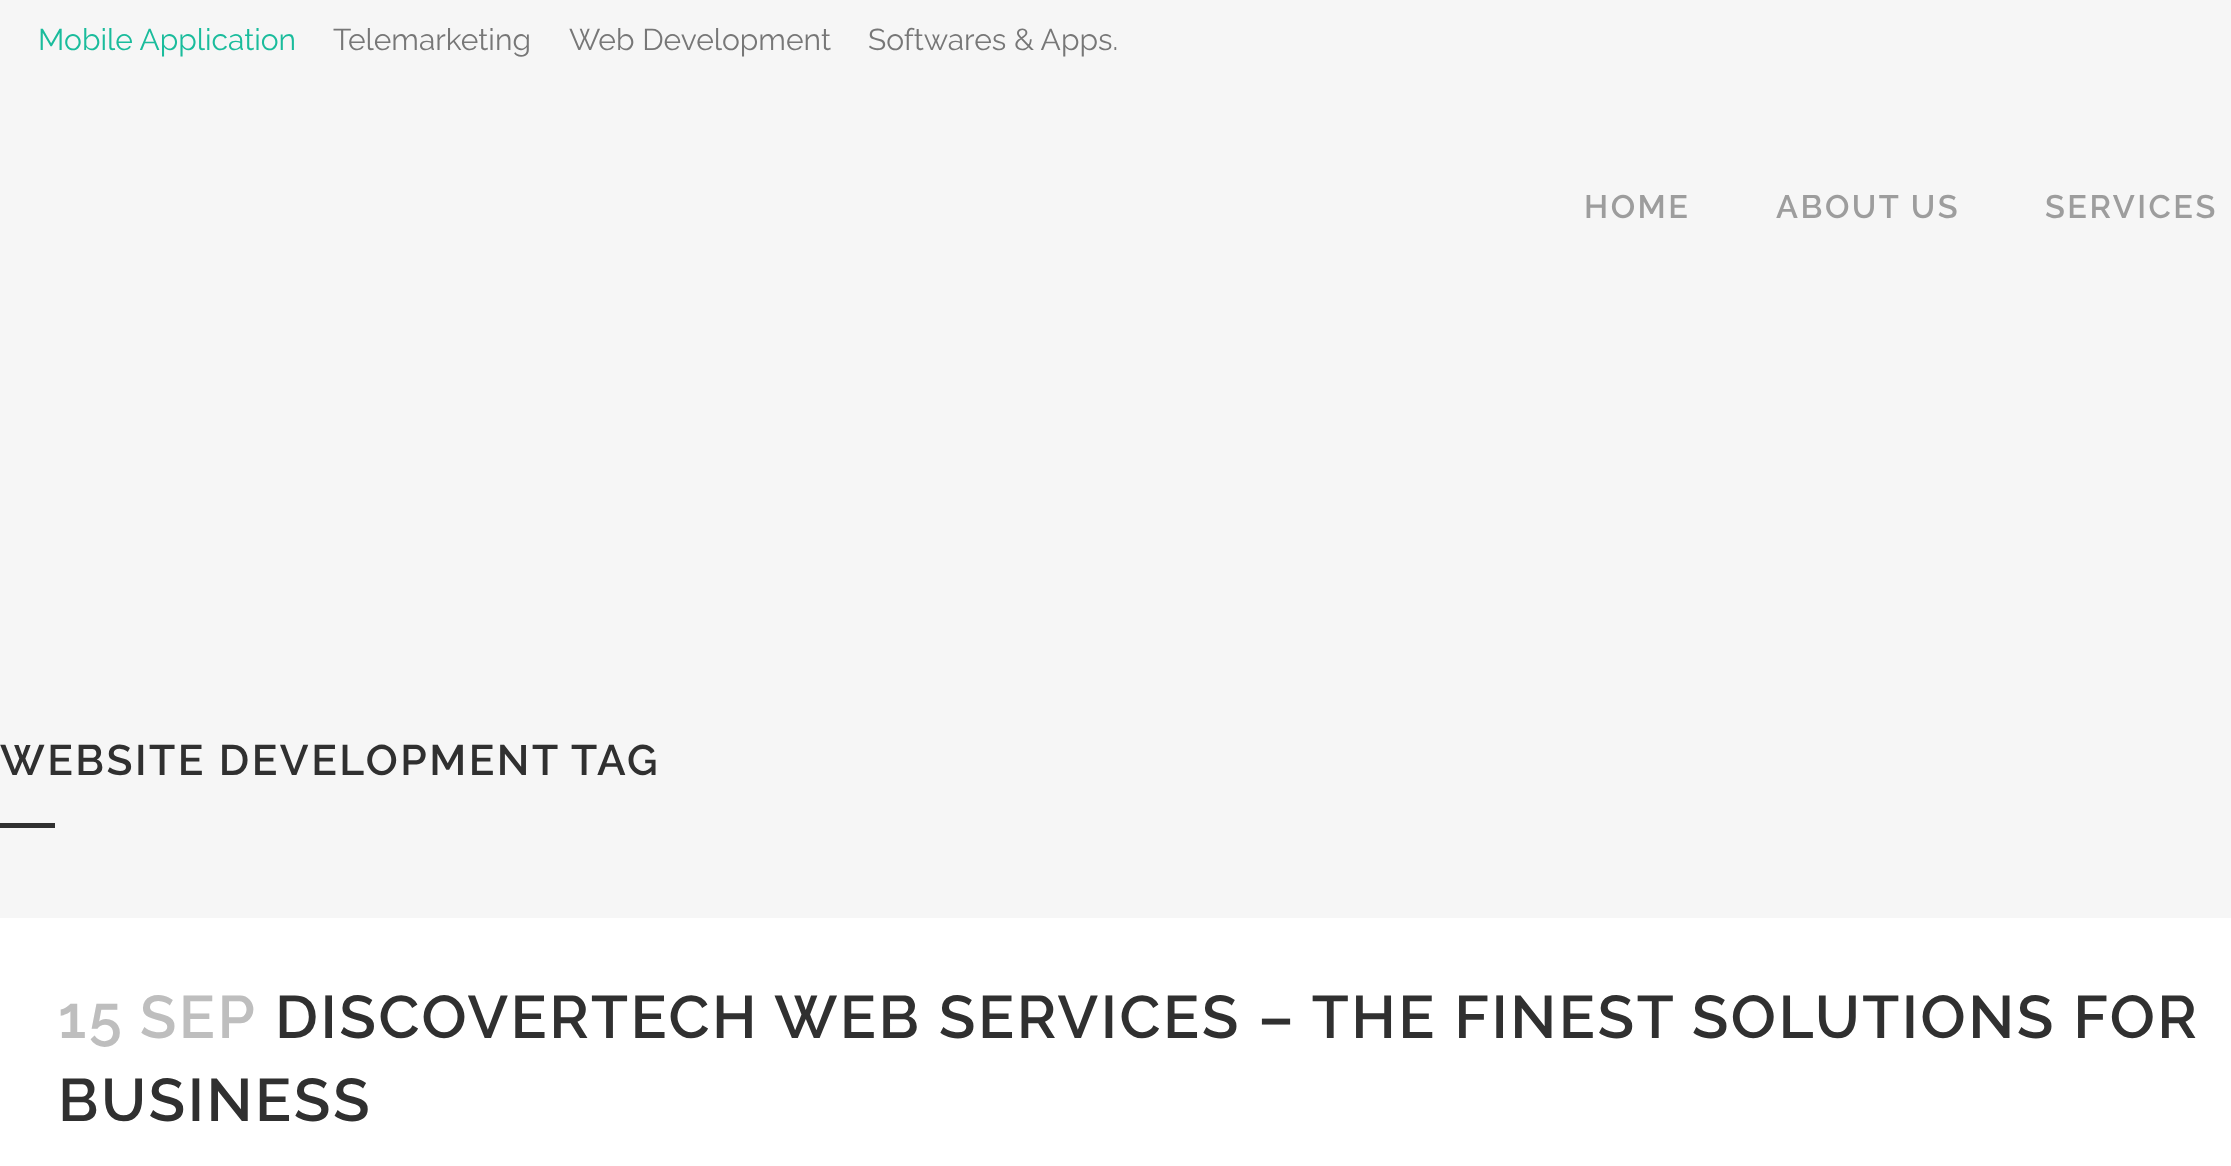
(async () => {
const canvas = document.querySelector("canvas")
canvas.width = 2231
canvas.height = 1166
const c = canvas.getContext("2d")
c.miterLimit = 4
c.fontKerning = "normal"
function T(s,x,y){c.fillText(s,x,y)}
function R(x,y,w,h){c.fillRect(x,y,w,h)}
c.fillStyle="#f6f6f6"
R(0,0,2231,1166)
c.font="30px Raleway"
c.fillStyle="#1abc9c"
T("Mobile Application",38,50)
c.fillStyle="#777"
T("Telemarketing",333,50)
T("Web Development",569,50)
T("Softwares & Apps.",868,50)
c.letterSpacing="2.5px"
c.font="600 32.5px Raleway"
c.fillStyle="#9d9d9d"
T("HOME",1584,218)
T("ABOUT US",1776,218)
T("SERVICES",2045,218)
c.font="600 42.5px Raleway"
c.fillStyle="#303030"
T("WEBSITE DEVELOPMENT TAG",0,775)
R(0,823,55,5)
c.fillStyle="#fff"
R(0,918,2231,248)
c.wordSpacing="-2px"
c.font="600 60px Raleway"
c.fillStyle="#bebebe"
T("15 SEP",58,1038)
c.wordSpacing="0px"
c.fillStyle="#303030"
T("DISCOVERTECH WEB SERVICES – THE FINEST SOLUTIONS FOR",275,1038)
T("BUSINESS",58,1121)
})()
